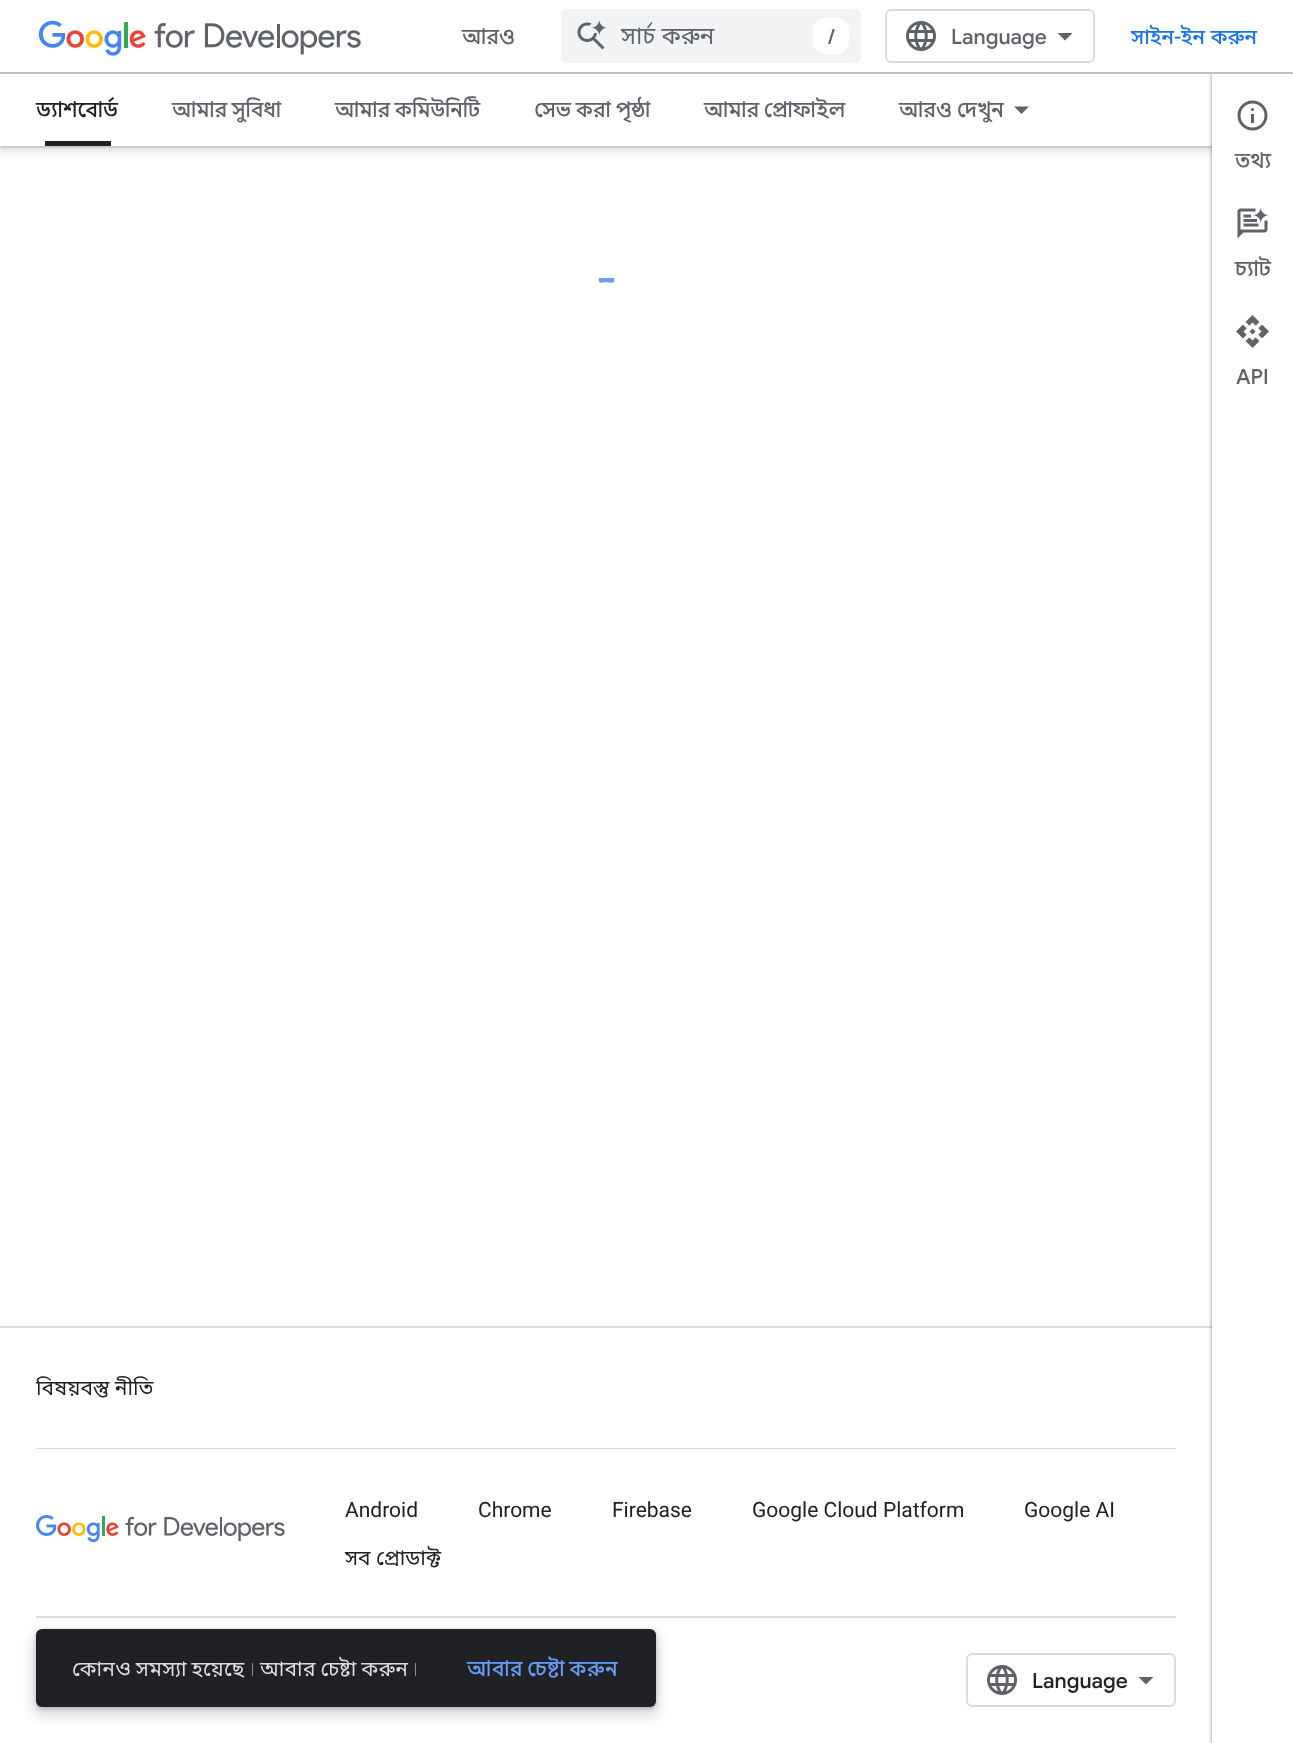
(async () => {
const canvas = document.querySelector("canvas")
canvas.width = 1293
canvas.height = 1743
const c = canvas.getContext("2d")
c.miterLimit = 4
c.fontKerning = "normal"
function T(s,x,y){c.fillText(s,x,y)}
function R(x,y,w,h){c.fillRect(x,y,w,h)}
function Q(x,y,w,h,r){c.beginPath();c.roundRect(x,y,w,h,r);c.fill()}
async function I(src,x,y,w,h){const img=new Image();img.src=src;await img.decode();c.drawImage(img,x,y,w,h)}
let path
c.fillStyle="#fff"
R(0,0,1293,1743)
c.fillStyle="#3c404326"
c.filter="blur(4.5px)"
c.beginPath()
c.rect(-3,74,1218,78)
c.fill()
c.filter="none"
c.fillStyle="#3c40434d"
c.filter="blur(1.5px)"
c.beginPath()
c.rect(0,75,1212,72)
c.fill()
c.filter="none"
c.fillStyle="#fff"
R(0,74,1212,72)
c.fillStyle="#dadce0"
R(0,1326,1212,2)
c.fillStyle="#00000026"
c.filter="blur(2px)"
c.beginPath()
c.rect(1211,72,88,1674)
c.fill()
c.filter="none"
c.fillStyle="#0000004d"
c.filter="blur(1.5px)"
c.beginPath()
c.rect(1212,74,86,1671)
c.fill()
c.filter="none"
c.fillStyle="#fff"
R(0,68,1293,4)
c.fillStyle="#bdc1c6"
R(0,72,1293,2)
await I("1.png",38,20,323,36)
c.font="500 21px Google Sans"
c.fillStyle="#5f6368"
T("আরও",462,44)
c.fillStyle="#f1f3f4"
Q(561,9,300,54,6)
await I("2.png",577,20,30,30)
c.font="24px Noto Sans Bengali"
c.fillStyle="#5f6368"
T("সার্চ করুন",621,44)
c.fillStyle="#fff"
Q(813,18,36,36,12)
c.font="500 21px Google Sans"
c.fillStyle="#5f6368"
T("/",828,44)
c.beginPath()
c.roundRect(886,10,208,52,5)
c.strokeStyle="#dadce0"
c.lineWidth=2
c.stroke()
await I("3.png",906,21,30,30)
T("Language",951,44)
path = new Path2D("M1065 40.5l-7.5-7.5h15z")
c.fill(path)
c.font="500 21px Noto Sans Bengali"
c.fillStyle="#1a73e8"
T("সাইন",1131,44)
c.font="500 21px Roboto"
T("-",1174,44)
c.font="500 21px Noto Sans Bengali"
T("ইন করুন",1181,44)
c.font="500 21px Google Sans"
c.fillStyle="#202124"
T("ড্যাশবোর্ড",36,117)
R(45,141,66,5)
c.fillStyle="#5f6368"
T("আমার সুবিধা",172,117)
T("আমার কমিউনিটি",335,117)
T("সেভ করা পৃষ্ঠা",534,117)
T("আমার প্রোফাইল",704,117)
T("আরও দেখুন",899,117)
path = new Path2D("M1014 106.5h15l-7.5 7.5z")
c.fill(path)
c.save()
c.beginPath()
c.rect(534,278,72,144)
c.clip()
path = new Path2D("M600 280c13.5-1 27.5 1.5 39.5 8.5c60 33 41 124.5-27.5 130.5")
c.strokeStyle="#689ef6"
c.lineWidth=4.5
c.stroke(path)
c.restore()
c.save()
c.beginPath()
c.rect(599,278,15,144)
c.clip()
path = new Path2D("M556.5 399c-16-16.5-23.5-40.5-19-63c3-13.5 9.5-26 19-36c44-43.5 119.5-12 119.5 49.5c0 18.5-7.5 36.5-20.5 49.5")
c.strokeStyle="#689ef6"
c.lineWidth=4.5
c.stroke(path)
c.restore()
c.save()
c.beginPath()
c.rect(606,278,72,144)
c.clip()
path = new Path2D("M600 419c-13.5-1-27-6.5-37.5-15c-53.5-43-19-130 49.5-124")
c.strokeStyle="#689ef6"
c.lineWidth=4.5
c.stroke(path)
c.restore()
c.save()
c.beginPath()
c.rect(534,278,72,144)
c.clip()
path = new Path2D("M600 280c13.5-1 27.5 1.5 39.5 8.5c60 33 41 124.5-27.5 130.5")
c.strokeStyle="#689ef6"
c.lineWidth=4.5
c.stroke(path)
c.restore()
c.save()
c.beginPath()
c.rect(606,278,72,144)
c.clip()
path = new Path2D("M600 419c-13.5-1-27-6.5-37.5-15c-53.5-43-19-130 49.5-124")
c.strokeStyle="#689ef6"
c.lineWidth=4.5
c.stroke(path)
c.restore()
c.save()
c.beginPath()
c.rect(534,278,72,144)
c.clip()
path = new Path2D("M600 280c13.5-1 27.5 1.5 39.5 8.5c60 33 41 124.5-27.5 130.5")
c.strokeStyle="#689ef6"
c.lineWidth=4.5
c.stroke(path)
c.restore()
c.save()
c.beginPath()
c.rect(606,278,72,144)
c.clip()
path = new Path2D("M600 419c-13.5-1-27-6.5-37.5-15c-53.5-43-19-130 49.5-124")
c.strokeStyle="#689ef6"
c.lineWidth=4.5
c.stroke(path)
c.restore()
c.save()
c.beginPath()
c.rect(534,278,72,144)
c.clip()
path = new Path2D("M600 280c13.5-1 27.5 1.5 39.5 8.5c60 33 41 124.5-27.5 130.5")
c.strokeStyle="#689ef6"
c.lineWidth=4.5
c.stroke(path)
c.restore()
c.save()
c.beginPath()
c.rect(606,278,72,144)
c.clip()
path = new Path2D("M600 419c-13.5-1-27-6.5-37.5-15c-53.5-43-19-130 49.5-124")
c.strokeStyle="#689ef6"
c.lineWidth=4.5
c.stroke(path)
c.restore()
c.fillStyle="#fff"
R(1212,74,81,1669)
await I("4.png",1237,100,31,31)
c.fillStyle="#5f6368"
T("তথ্য",1235,168)
await I("5.png",1237,207,32,32)
T("চ্যাট",1235,276)
await I("6.png",1236,315,33,33)
T("API",1236,384)
c.fillStyle="#dadce0"
R(36,1448,1140,1)
c.font="21px Noto Sans Bengali"
c.fillStyle="#202124"
T("বিষয়বস্তু নীতি",36,1395)
c.fillStyle="#dadce0"
R(36,1616,1140,2)
await I("7.png",36,1515,249,27)
c.font="21px Roboto"
c.fillStyle="#202124"
T("Android",345,1517)
T("Chrome",478,1517)
T("Firebase",612,1517)
T("Google Cloud Platform",752,1517)
T("Google AI",1024,1517)
c.font="21px Noto Sans Bengali"
T("সব প্রোডাক্ট",345,1565)
c.beginPath()
c.roundRect(967,1654,208,52,5)
c.stroke()
await I("3.png",987,1665,30,30)
c.font="500 21px Google Sans"
T("Language",1032,1688)
c.fillStyle="#5f6368"
path = new Path2D("M1146 1684.5l-7.5-7.5h15z")
c.fill(path)
c.fillStyle="#3c404326"
c.filter="blur(6px)"
c.beginPath()
c.roundRect(32,1631,628,87,11)
c.fill()
c.filter="none"
c.fillStyle="#3c40434d"
c.filter="blur(2px)"
c.beginPath()
c.roundRect(36,1631,620,78,6)
c.fill()
c.filter="none"
c.fillStyle="#202124"
Q(36,1629,620,78,6)
c.letterSpacing="0.25px"
c.wordSpacing="-1px"
c.font="21px Noto Sans Bengali"
c.fillStyle="#ddd"
T("কোনও সমস্যা হয়েছে",72,1676)
c.wordSpacing="0px"
c.font="100 21px Noto Sans"
T("।",248,1676)
c.wordSpacing="-1px"
c.font="21px Noto Sans Bengali"
T("আবার চেষ্টা করুন",260,1676)
c.wordSpacing="0px"
c.font="100 21px Noto Sans"
T("।",411,1676)
c.letterSpacing="0.4px"
c.wordSpacing="-1px"
c.font="500 21px Google Sans"
c.fillStyle="#669df6"
T("আবার চেষ্টা করুন",467,1676)
})()
